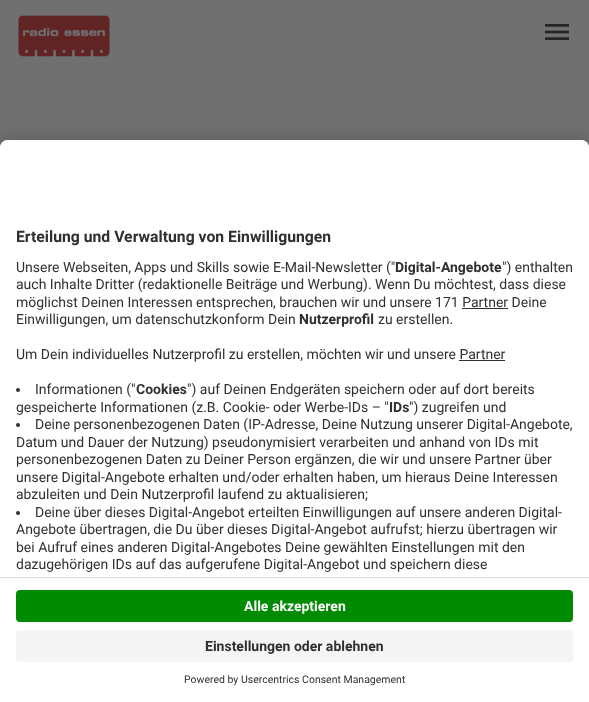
(async () => {
const canvas = document.querySelector("canvas")
canvas.width = 589
canvas.height = 702
const c = canvas.getContext("2d")
c.miterLimit = 4
c.fontKerning = "normal"
function T(s,x,y){c.fillText(s,x,y)}
function R(x,y,w,h){c.fillRect(x,y,w,h)}
function Q(x,y,w,h,r){c.beginPath();c.roundRect(x,y,w,h,r);c.fill()}
async function I(src,x,y,w,h){const img=new Image();img.src=src;await img.decode();c.drawImage(img,x,y,w,h)}
c.fillStyle="#707070"
R(0,0,589,702)
await I("1.png",18,15,92,42)
await I("2.png",545,24,24,16)
c.fillStyle="#0000004d"
c.filter="blur(14px)"
c.beginPath()
c.roundRect(0,160,589,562,8)
c.fill()
c.filter="none"
c.fillStyle="#00000038"
c.filter="blur(13px)"
c.beginPath()
c.roundRect(0,145,589,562,8)
c.fill()
c.filter="none"
c.fillStyle="#fff"
c.beginPath()
c.roundRect(0,140,589,562,[8,8,0,0])
c.fill()
c.beginPath()
c.roundRect(0,140,589,437,[8,8,0,0])
c.fill()
c.font="bold 15.75px Roboto"
c.fillStyle="#303030"
T("Erteilung und Verwaltung von Einwilligungen",16,242)
c.font="14px Roboto"
T("Unsere Webseiten, Apps und Skills sowie E-Mail-Newsletter (\"",16,272)
c.font="bold 14px Roboto"
T("Digital-Angebote",395,272)
c.font="14px Roboto"
T("\") enthalten",502,272)
T("auch Inhalte Dritter (redaktionelle Beiträge und Werbung). Wenn Du möchtest, dass diese",16,289)
T("möglichst Deinen Interessen entsprechen, brauchen wir und unsere 171 Partner Deine",16,307)
R(462,308,46,1)
T("Einwilligungen, um datenschutzkonform Dein",16,324)
c.font="bold 14px Roboto"
T("Nutzerprofil",299,324)
c.font="14px Roboto"
T("zu erstellen.",378,324)
T("Um Dein individuelles Nutzerprofil zu erstellen, möchten wir und unsere Partner",16,359)
R(459,360,46,1)
c.beginPath()
c.arc(18,390,2,0,7)
c.fill()
T("Informationen (\"",35,394)
c.font="bold 14px Roboto"
T("Cookies",136,394)
c.font="14px Roboto"
T("\") auf Deinen Endgeräten speichern oder auf dort bereits",187,394)
T("gespeicherte Informationen (z.B. Cookie- oder Werbe-IDs – \"",16,412)
c.font="bold 14px Roboto"
T("IDs",389,412)
c.font="14px Roboto"
T("\") zugreifen und",409,412)
c.beginPath()
c.arc(18,425,2,0,7)
c.fill()
T("Deine personenbezogenen Daten (IP-Adresse, Deine Nutzung unserer Digital-Angebote,",35,429)
T("Datum und Dauer der Nutzung) pseudonymisiert verarbeiten und anhand von IDs mit",16,447)
T("personenbezogenen Daten zu Deiner Person ergänzen, die wir und unsere Partner über",16,464)
T("unsere Digital-Angebote erhalten und/oder erhalten haben, um hieraus Deine Interessen",16,482)
T("abzuleiten und Dein Nutzerprofil laufend zu aktualisieren;",16,499)
c.beginPath()
c.arc(18,513,2,0,7)
c.fill()
T("Deine über dieses Digital-Angebot erteilten Einwilligungen auf unsere anderen Digital-",35,517)
T("Angebote übertragen, die Du über dieses Digital-Angebot aufrufst; hierzu übertragen wir",16,534)
T("bei Aufruf eines anderen Digital-Angebotes Deine gewählten Einstellungen mit den",16,552)
T("dazugehörigen IDs auf das aufgerufene Digital-Angebot und speichern diese",16,569)
c.fillStyle="#ddd"
R(0,577,589,1)
c.fillStyle="#008b02"
Q(16,590,557,32,4)
c.font="bold 14px Roboto"
c.fillStyle="#fafafa"
T("Alle akzeptieren",244,611)
c.fillStyle="#f5f5f5"
Q(16,630,557,32,4)
c.fillStyle="#303030"
T("Einstellungen oder ablehnen",205,651)
c.font="10.5px Roboto"
T("Powered by Usercentrics Consent Management",184,683)
})()
